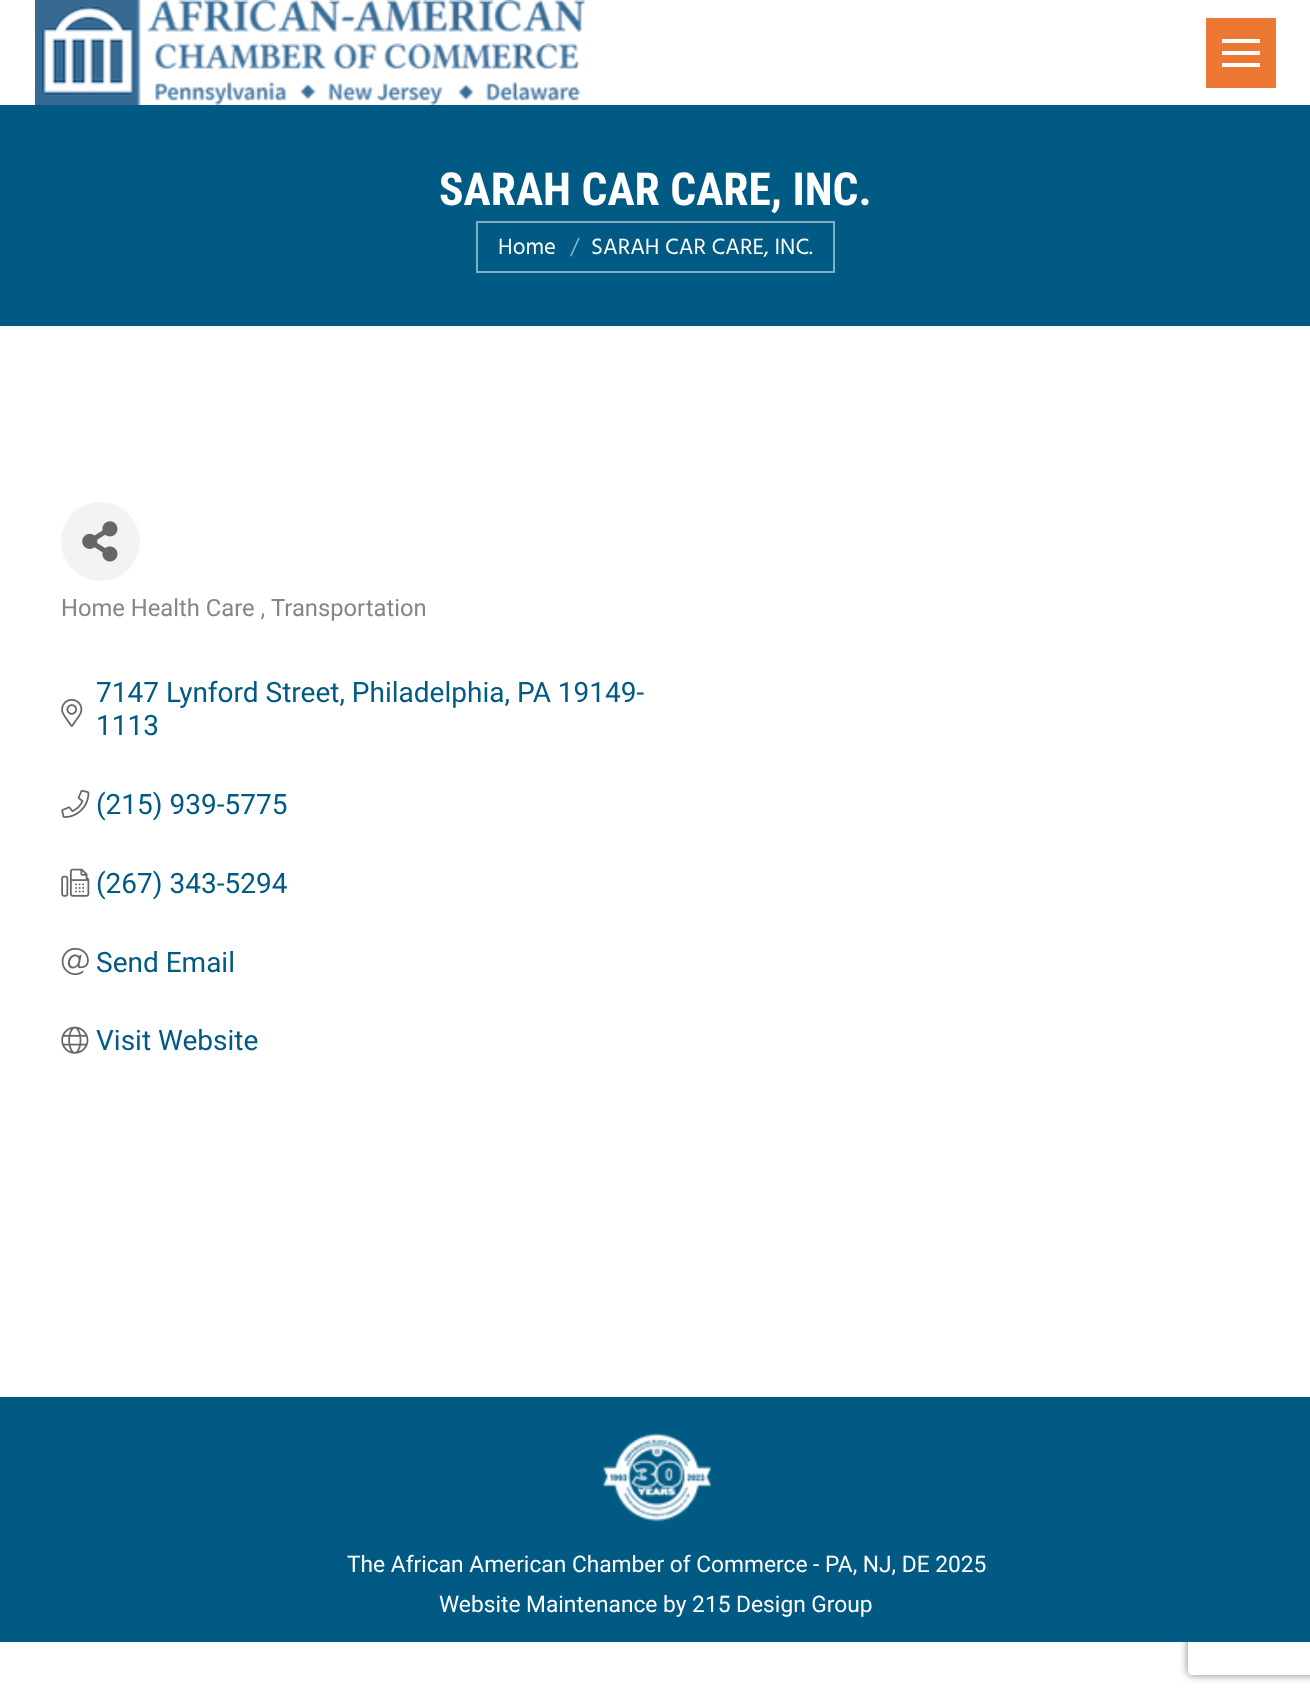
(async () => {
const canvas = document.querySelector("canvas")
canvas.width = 1310
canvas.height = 1698
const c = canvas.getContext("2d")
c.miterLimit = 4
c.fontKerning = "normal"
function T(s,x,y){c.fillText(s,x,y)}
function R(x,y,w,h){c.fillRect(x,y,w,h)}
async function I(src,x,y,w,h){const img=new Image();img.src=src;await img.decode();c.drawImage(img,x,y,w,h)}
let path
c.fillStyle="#fff"
R(0,0,1310,1698)
await I("1.png",35,0,550,105)
c.fillStyle="#ec7834"
R(1206,18,70,70)
c.fillStyle="#fff"
R(1222,39,38,4)
R(1222,51,38,4)
R(1222,63,38,4)
c.fillStyle="#005a84"
R(0,105,1310,221)
c.font="bold 45.5px Roboto Condensed"
c.fillStyle="#fff"
T("SARAH CAR CARE, INC.",439,205)
c.strokeStyle="#80adc2"
c.lineWidth=2
c.strokeRect(477,222,357,50)
c.font="22.75px Hind"
T("Home",498,254)
c.fillStyle="#80adc2"
T("/",570,254)
c.fillStyle="#fff"
T("SARAH CAR CARE, INC.",591,254)
c.fillStyle="#f3f3f3"
c.beginPath()
c.arc(100.5,541.5,39.5,0,7)
c.fill()
await I("2.png",82,521,36,41)
c.font="23.75px Roboto"
c.fillStyle="#858585"
T("Home Health Care ,",61,616)
T("Transportation",271,616)
c.font="28px Roboto"
c.fillStyle="#005a84"
T("7147 Lynford Street, Philadelphia, PA 19149-",96,702)
await I("3.png",61,699,22,28)
T("1113",96,735)
await I("4.png",61,790,29,28)
T("(215) 939-5775",96,814)
await I("5.png",61,868,29,29)
T("(267) 343-5294",96,893)
await I("6.png",61,947,28,28)
T("Send Email",96,972)
await I("7.png",61,1026,28,28)
T("Visit Website",96,1050)
c.save()
path = new Path2D("M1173 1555h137v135h-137zm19 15h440c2 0 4 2 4 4v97c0 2-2 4-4 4h-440c-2 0-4-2-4-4v-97c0-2 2-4 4-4z")
c.clip(path,"evenodd")
c.fillStyle="#808080"
c.filter="blur(4.5px)"
c.beginPath()
c.roundRect(1188,1570,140,105,4)
c.fill()
c.filter="none"
c.restore()
R(0,1397,1310,245)
await I("8.png",602,1433,110,91)
c.font="22.75px Roboto"
c.fillStyle="#fff"
T("The African American Chamber of Commerce - PA, NJ, DE 2025",347,1572)
T("Website Maintenance by 215 Design Group",439,1612)
})()
